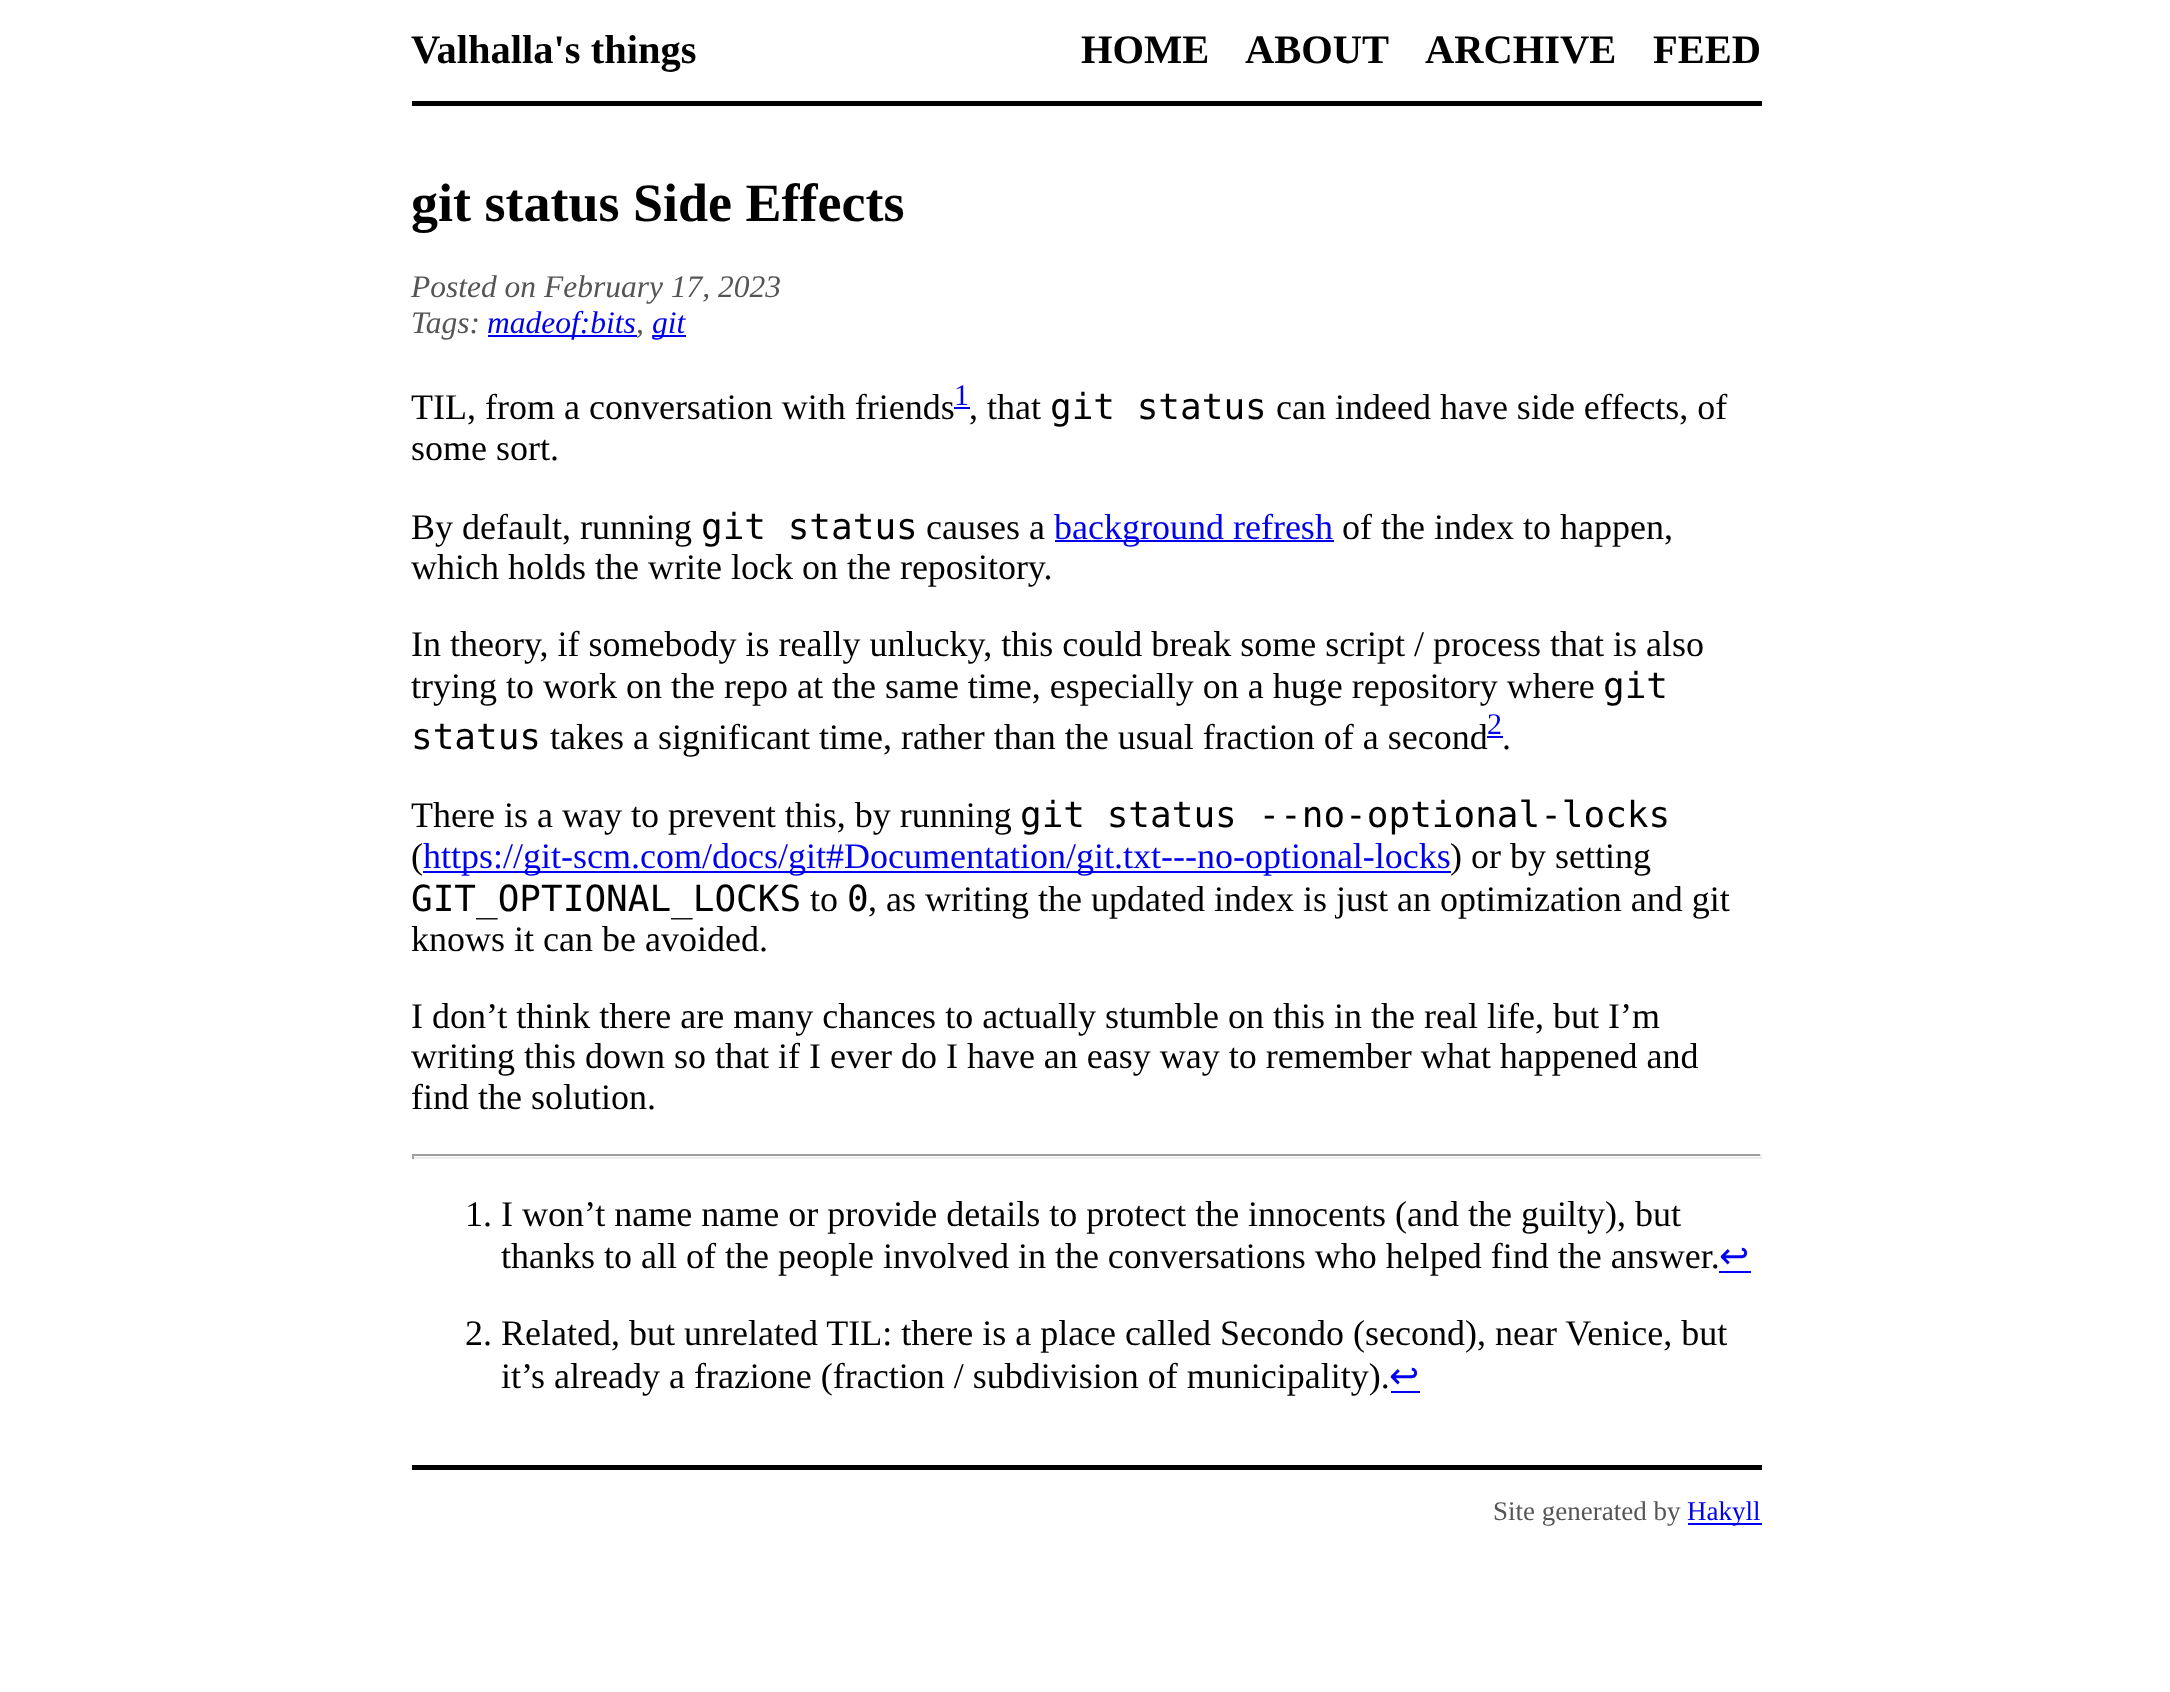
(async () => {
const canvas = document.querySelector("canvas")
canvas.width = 2170
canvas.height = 1692
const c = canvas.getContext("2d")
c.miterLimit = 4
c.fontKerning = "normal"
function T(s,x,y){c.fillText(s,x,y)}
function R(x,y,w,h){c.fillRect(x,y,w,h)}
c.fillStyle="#fff"
R(0,0,2170,1692)
c.fillStyle="#000"
R(412,101,1350,5)
c.font="bold 40.5px Liberation Serif"
T("Valhalla's things",411,63)
T("HOME",1081,63)
T("ABOUT",1245,63)
T("ARCHIVE",1425,63)
T("FEED",1653,63)
c.font="bold 54px Liberation Serif"
T("git status Side Effects",411,221)
c.font="italic 31.5px Liberation Serif"
c.fillStyle="#555"
T("Posted on February 17, 2023",411,297)
T("Tags:",411,333)
c.fillStyle="#00e"
R(488,335,149,2)
T("madeof:bits",487,333)
c.fillStyle="#555"
T(",",636,333)
c.fillStyle="#00e"
R(653,335,33,2)
T("git",652,333)
c.font="36px Liberation Serif"
c.fillStyle="#000"
T("TIL, from a conversation with friends",411,419)
c.font="30px Liberation Serif"
c.fillStyle="#00e"
T("1",954,405)
R(954,407,16,2)
c.font="36px Liberation Serif"
c.fillStyle="#000"
T(", that",969,419)
c.font="36px DejaVu Sans Mono"
T("git status",1050,419)
c.font="36px Liberation Serif"
T("can indeed have side effects, of",1276,419)
T("some sort.",411,460)
T("By default, running",411,539)
c.font="36px DejaVu Sans Mono"
T("git status",701,539)
c.font="36px Liberation Serif"
T("causes a",926,539)
c.fillStyle="#00e"
R(1055,540,279,2)
T("background refresh",1054,539)
c.fillStyle="#000"
T("of the index to happen,",1342,539)
T("which holds the write lock on the repository.",411,579)
T("In theory, if somebody is really unlucky, this could break some script / process that is also",411,656)
T("trying to work on the repo at the same time, especially on a huge repository where",411,698)
c.font="36px DejaVu Sans Mono"
T("git",1603,698)
T("status",411,749)
c.font="36px Liberation Serif"
T("takes a significant time, rather than the usual fraction of a second",550,749)
c.font="30px Liberation Serif"
c.fillStyle="#00e"
T("2",1487,734)
R(1487,736,16,2)
c.font="36px Liberation Serif"
c.fillStyle="#000"
T(".",1502,749)
T("There is a way to prevent this, by running",411,827)
c.font="36px DejaVu Sans Mono"
T("git status --no-optional-locks",1020,827)
c.font="36px Liberation Serif"
T("(",411,868)
c.fillStyle="#00e"
R(423,871,1028,2)
T("https://git-scm.com/docs/git#Documentation/git.txt---no-optional-locks",423,868)
c.fillStyle="#000"
T(") or by setting",1450,868)
c.font="36px DejaVu Sans Mono"
T("GIT_OPTIONAL_LOCKS",411,911)
c.font="36px Liberation Serif"
T("to",810,911)
c.font="36px DejaVu Sans Mono"
T("0",847,911)
c.font="36px Liberation Serif"
T(", as writing the updated index is just an optimization and git",868,911)
T("knows it can be avoided.",411,951)
T("I don’t think there are many chances to actually stumble on this in the real life, but I’m",411,1028)
T("writing this down so that if I ever do I have an easy way to remember what happened and",411,1068)
T("find the solution.",411,1109)
c.fillStyle="#9f9f9f"
R(412,1154,1350,2)
c.fillStyle="#eee"
R(1760,1154,2,5)
R(412,1157,1350,2)
c.fillStyle="#9f9f9f"
R(412,1154,2,5)
c.fillStyle="#000"
T("1. I won’t name name or provide details to protect the innocents (and the guilty), but",465,1226)
T("thanks to all of the people involved in the conversations who helped find the answer.",501,1268)
c.font="36px DejaVu Sans"
c.fillStyle="#00e"
T("↩︎",1719,1268)
R(1719,1271,32,2)
c.font="36px Liberation Serif"
c.fillStyle="#000"
T("2. Related, but unrelated TIL: there is a place called Secondo (second), near Venice, but",465,1345)
T("it’s already a frazione (fraction / subdivision of municipality).",501,1388)
c.font="36px DejaVu Sans"
c.fillStyle="#00e"
T("↩︎",1389,1388)
R(1391,1391,29,2)
c.fillStyle="#000"
R(412,1465,1350,5)
c.font="27px Liberation Serif"
c.fillStyle="#555"
T("Site generated by",1493,1520)
c.fillStyle="#00e"
R(1688,1523,74,2)
T("Hakyll",1687,1520)
})()
